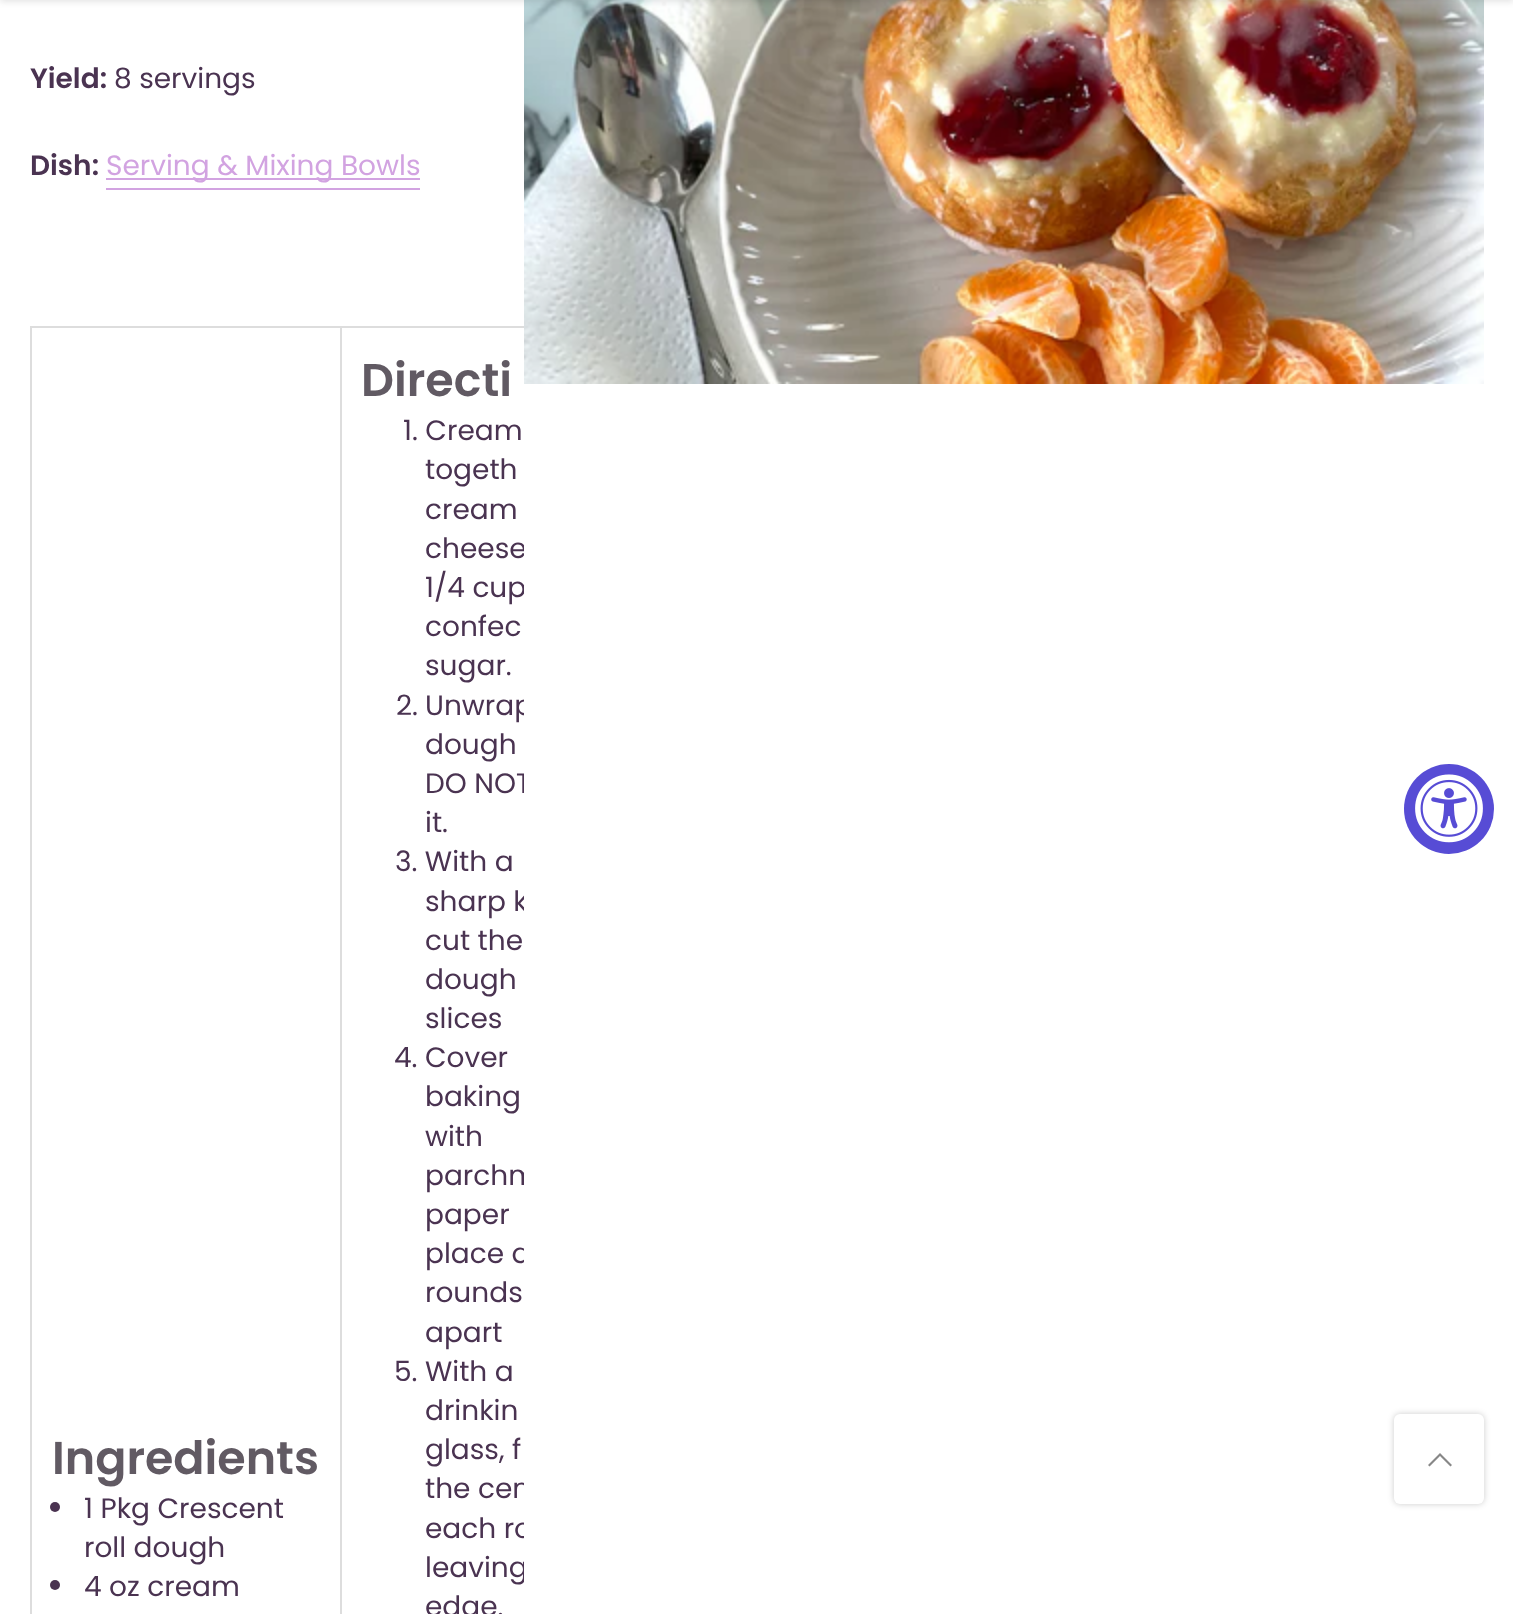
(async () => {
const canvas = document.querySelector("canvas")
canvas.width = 1513
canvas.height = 1614
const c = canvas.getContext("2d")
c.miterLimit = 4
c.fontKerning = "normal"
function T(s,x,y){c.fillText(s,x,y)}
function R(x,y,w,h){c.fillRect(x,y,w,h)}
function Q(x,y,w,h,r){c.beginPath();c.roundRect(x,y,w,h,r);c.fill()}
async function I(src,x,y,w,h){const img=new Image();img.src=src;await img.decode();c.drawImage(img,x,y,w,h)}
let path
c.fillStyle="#fff"
R(0,0,1513,1614)
await I("1.png",524,0,960,384)
c.fillStyle="#0000001a"
c.filter="blur(3px)"
c.beginPath()
c.rect(0,-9,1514,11)
c.fill()
c.filter="none"
c.font="600 28px Poppins"
c.fillStyle="#4a3351"
T("Yield:",30,88)
c.font="28px Poppins"
T("8 servings",114,88)
c.font="600 28px Poppins"
T("Dish:",30,175)
c.fillStyle="#d2a3e1"
R(106,178,314,2)
c.font="28px Poppins"
T("Serving & Mixing Bowls",106,175)
R(106,188,314,2)
c.fillStyle="#ddd"
R(30,326,494,2)
R(30,326,2,1288)
R(340,326,2,1288)
c.font="600 46px Poppins"
c.fillStyle="#615a63"
T("Ingredients",52,1474)
c.fillStyle="#4a3351"
c.beginPath()
c.arc(55,1507,5,0,7)
c.fill()
c.font="28px Poppins"
T("1 Pkg Crescent",84,1518)
T("roll dough",84,1557)
c.beginPath()
c.arc(55,1585,5,0,7)
c.fill()
T("4 oz cream",84,1596)
c.font="600 46px Poppins"
c.fillStyle="#615a63"
T("Directi",361,396)
c.font="28px Poppins"
c.fillStyle="#4a3351"
T("1. Cream",403,440)
T("togeth",425,479)
T("cream",425,519)
c.save()
c.beginPath()
c.rect(30,326,494,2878)
c.clip()
T("cheese",425,558)
T("1/4 cup",425,597)
c.restore()
T("confec",425,636)
T("sugar.",425,675)
T("2.",396,715)
c.save()
c.beginPath()
c.rect(30,326,494,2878)
c.clip()
T("Unwrap",425,715)
c.restore()
T("dough",425,754)
c.save()
c.beginPath()
c.rect(30,326,494,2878)
c.clip()
T("DO NOT",425,793)
c.restore()
T("it.",425,832)
T("3. With a",395,871)
c.save()
c.beginPath()
c.rect(30,326,494,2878)
c.clip()
T("sharp k",425,911)
c.restore()
T("cut the",425,950)
T("dough",425,989)
T("slices",425,1028)
T("4. Cover",394,1067)
T("baking",425,1106)
T("with",425,1146)
c.save()
c.beginPath()
c.rect(30,326,494,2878)
c.clip()
T("parchm",425,1185)
c.restore()
T("paper",425,1224)
c.save()
c.beginPath()
c.rect(30,326,494,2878)
c.clip()
T("place d",425,1263)
c.restore()
T("rounds",425,1302)
T("apart",425,1342)
T("5. With a",394,1381)
T("drinkin",425,1420)
T("glass, f",425,1459)
c.save()
c.beginPath()
c.rect(30,326,494,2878)
c.clip()
T("the cen",425,1498)
T("each ro",425,1538)
T("leaving",425,1577)
c.restore()
T("edge.",425,1616)
c.fillStyle="#574cd5"
c.beginPath()
c.arc(1449,809,45,0,7)
c.fill()
await I("2.png",1415,774,68,69)
c.fillStyle="#00000033"
c.filter="blur(3px)"
c.beginPath()
c.roundRect(1394,1414,90,90,6)
c.fill()
c.filter="none"
c.fillStyle="#fff"
Q(1394,1414,90,90,6)
c.fillStyle="#878787"
path = new Path2D("M1441.5 1454.5l-1.5-1.5l-12 12l1.5 1.5l10.5-10.5l10.5 10.5l1.5-1.5l-6-6z")
c.fill(path)
})()
